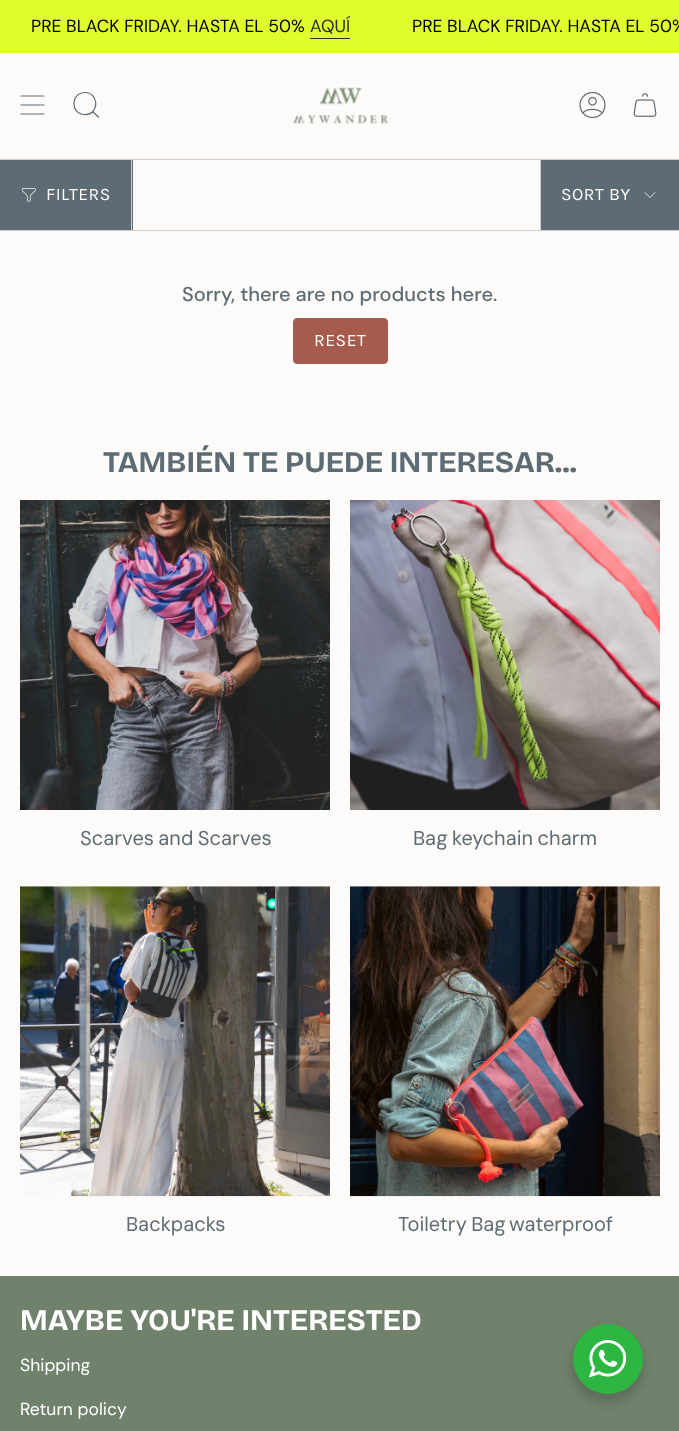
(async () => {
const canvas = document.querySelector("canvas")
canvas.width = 679
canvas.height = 1431
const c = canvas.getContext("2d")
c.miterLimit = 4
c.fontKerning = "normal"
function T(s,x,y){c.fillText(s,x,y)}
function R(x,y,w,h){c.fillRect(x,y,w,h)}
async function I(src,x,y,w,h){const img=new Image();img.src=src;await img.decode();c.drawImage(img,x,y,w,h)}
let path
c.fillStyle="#fcfbf9"
R(0,0,679,1431)
c.fillStyle="#dffd2d"
R(0,0,679,53)
c.font="17.5px 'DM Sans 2'"
c.fillStyle="#000"
T("PRE BLACK FRIDAY. HASTA EL 50%",31,32)
c.fillStyle="#282c2e"
T("AQUÍ",310,32)
R(310,38,40,1)
c.fillStyle="#000"
T("PRE BLACK FRIDAY. HASTA EL 50%",412,32)
path = new Path2D("M21 96h23m-23 9h23m-23 9h23")
c.strokeStyle="#5d6c74"
c.lineWidth=1.2
c.lineCap="round"
c.lineJoin="round"
c.stroke(path)
path = new Path2D("M85 92.5c14.5 0 14.5 23-.5 22c-14.5-.5-14-22 .5-22zm7.5 19l6.5 6")
c.lineCap="butt"
c.lineJoin="miter"
c.stroke(path)
await I("1.png",293,87,96,38)
await I("2.png",579,91,27,28)
await I("3.png",633,93,24,24)
c.fillStyle="#d1cdc4"
R(0,159,679,1)
R(0,230,679,1)
c.fillStyle="#5d6c74"
R(0,160,133,70)
c.fillStyle="#d1cdc4"
R(131,160,1,70)
await I("4.png",21,188,15,14)
c.letterSpacing="0.5px"
c.font="17.5px Karla"
c.fillStyle="#fcfbf9"
T("FILTERS",46,200)
c.fillStyle="#5d6c74"
R(541,160,138,70)
c.fillStyle="#d1cdc4"
R(540,160,1,70)
c.fillStyle="#fcfbf9"
T("SORT BY",561,200)
path = new Path2D("M645 192.5l5 5l5-5")
c.strokeStyle="#fcfbf9"
c.lineWidth=0.8
c.lineCap="round"
c.lineJoin="round"
c.stroke(path)
c.letterSpacing="0px"
c.font="500 20px DM Sans"
c.fillStyle="#5d6c74"
T("Sorry, there are no products here.",182,301)
c.fillStyle="#a75b4d"
c.beginPath()
c.roundRect(293.5,318.5,94,45,3.5)
c.fill()
c.strokeStyle="#a75b4d"
c.lineWidth=1
c.lineJoin="miter"
c.stroke()
c.letterSpacing="0.5px"
c.font="17.5px Karla"
c.fillStyle="#fff"
T("RESET",314,346)
c.letterSpacing="0px"
c.font="bold 30px Bricolage Grotesque"
c.fillStyle="#5d6c74"
T("TAMBIÉN TE PUEDE INTERESAR...",103,472)
await I("5.png",20,500,310,310)
c.wordSpacing="-1px"
c.font="20px DM Sans"
T("Scarves and Scarves",80,845)
await I("6.png",350,500,310,310)
T("Bag keychain charm",413,845)
await I("7.png",20,886,310,311)
c.wordSpacing="0px"
T("Backpacks",126,1231)
await I("8.png",350,886,310,311)
c.wordSpacing="-1px"
T("Toiletry Bag",398,1231)
c.wordSpacing="0px"
T("waterproof",509,1231)
c.fillStyle="#70826c"
R(0,1276,679,155)
c.font="bold 30px Bricolage Grotesque"
c.fillStyle="#fff"
T("MAYBE YOU'RE INTERESTED",20,1330)
c.font="17.5px 'DM Sans 2'"
T("Shipping",20,1371)
T("Return policy",20,1415)
c.fillStyle="#00000024"
c.filter="blur(5px)"
c.beginPath()
c.roundRect(570,1329,75,75,37.5)
c.fill()
c.filter="none"
c.fillStyle="#2db742"
c.beginPath()
c.arc(608,1359,35,0,7)
c.fill()
await I("9.png",589,1340,37,38)
})()
